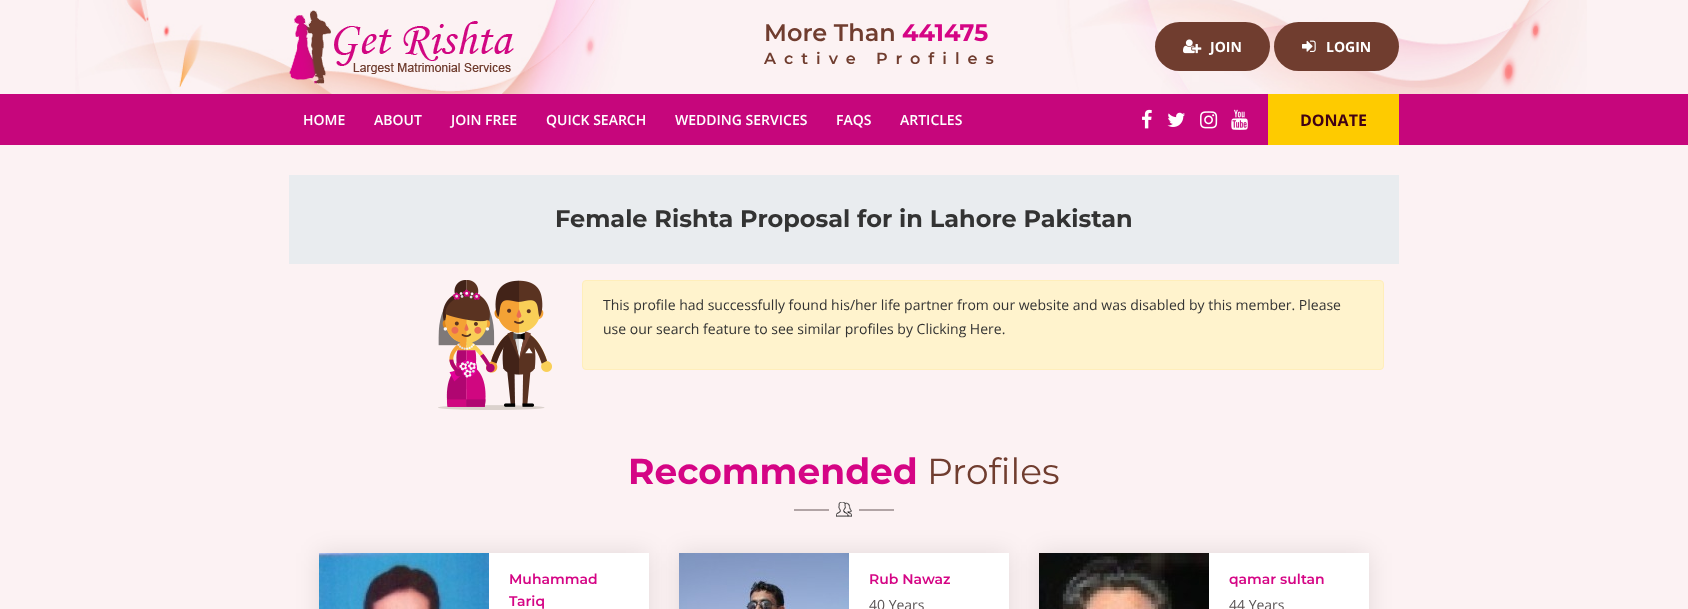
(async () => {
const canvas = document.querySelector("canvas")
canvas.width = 1688
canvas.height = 609
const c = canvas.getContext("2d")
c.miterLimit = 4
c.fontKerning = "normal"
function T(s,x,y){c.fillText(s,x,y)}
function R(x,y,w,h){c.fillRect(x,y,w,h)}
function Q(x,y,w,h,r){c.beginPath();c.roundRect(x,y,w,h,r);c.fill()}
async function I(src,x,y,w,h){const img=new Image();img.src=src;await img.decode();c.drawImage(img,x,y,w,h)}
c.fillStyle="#fcf2f3"
R(0,0,1688,609)
await I("1.png",75,0,1512,94)
await I("2.png",289,10,225,74)
c.font="600 24px Montserrat"
c.fillStyle="#703d2f"
T("More Than",764,41)
c.font="bold 24px Montserrat"
c.fillStyle="#d50585"
T("441475",902,41)
c.letterSpacing="8px"
c.font="600 16px Montserrat"
c.fillStyle="#703d2f"
T("Active Profiles",764,64)
Q(1155,22,115,49,24.5)
await I("3.png",1183,39,19,15)
c.letterSpacing="0px"
c.font="bold 14px Open Sans"
c.fillStyle="#fff"
T("JOIN",1210,52)
c.fillStyle="#703d2f"
Q(1274,22,125,49,24.5)
await I("4.png",1302,40,14,12)
c.fillStyle="#fff"
T("LOGIN",1326,52)
c.fillStyle="#c6067c"
R(0,94,1688,51)
c.font="600 14px Open Sans"
c.fillStyle="#fff"
T("HOME",303,125)
T("ABOUT",374,125)
T("JOIN FREE",451,125)
T("QUICK SEARCH",546,125)
T("WEDDING SERVICES",675,125)
T("FAQS",836,125)
T("ARTICLES",900,125)
await I("5.png",1142,109,10,20)
await I("6.png",1167,112,18,15)
await I("7.png",1200,111,18,18)
await I("8.png",1231,109,17,21)
c.fillStyle="#fecb00"
R(1268,94,131,51)
c.font="bold 16px Open Sans"
c.fillStyle="#400114"
T("DONATE",1300,126)
c.fillStyle="#e9ecef"
R(289,175,1110,89)
c.font="bold 24px Montserrat"
c.fillStyle="#333"
T("Female Rishta Proposal for in Lahore Pakistan",555,227)
await I("9.png",438,280,114,130)
c.fillStyle="#fff3cd"
c.beginPath()
c.roundRect(582.5,280.5,801,89,3.5)
c.fill()
c.strokeStyle="#ffeeba"
c.stroke()
c.font="14px Open Sans"
c.fillStyle="#333"
T("This profile had successfully found his/her life partner from our website and was disabled by this member. Please",603,310)
T("use our search feature to see similar profiles by Clicking Here.",603,334)
c.font="bold 36px Montserrat"
c.fillStyle="#d50585"
T("Recommended",628,484)
c.font="36px Montserrat"
c.fillStyle="#703d2f"
T("Profiles",927,484)
await I("10.png",794,502,100,15)
c.fillStyle="#0101011a"
c.filter="blur(12.5px)"
c.beginPath()
c.rect(319,553,330,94)
c.fill()
c.filter="none"
c.fillStyle="#fff"
R(489,553,160,56)
await I("11.png",319,553,170,56)
c.font="600 14px Montserrat"
c.fillStyle="#d50585"
T("Muhammad",509,584)
T("Tariq",509,606)
c.fillStyle="#0101011a"
c.filter="blur(12.5px)"
c.beginPath()
c.rect(679,553,330,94)
c.fill()
c.filter="none"
c.fillStyle="#fff"
R(849,553,160,56)
await I("12.png",679,553,170,56)
c.fillStyle="#d50585"
T("Rub Nawaz",869,584)
c.font="14px Open Sans"
c.fillStyle="#595354"
T("40 Years",869,610)
c.fillStyle="#0101011a"
c.filter="blur(12.5px)"
c.beginPath()
c.rect(1039,553,330,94)
c.fill()
c.filter="none"
c.fillStyle="#fff"
R(1209,553,160,56)
await I("13.png",1039,553,170,56)
c.font="600 14px Montserrat"
c.fillStyle="#d50585"
T("qamar sultan",1229,584)
c.font="14px Open Sans"
c.fillStyle="#595354"
T("44 Years",1229,610)
})()
